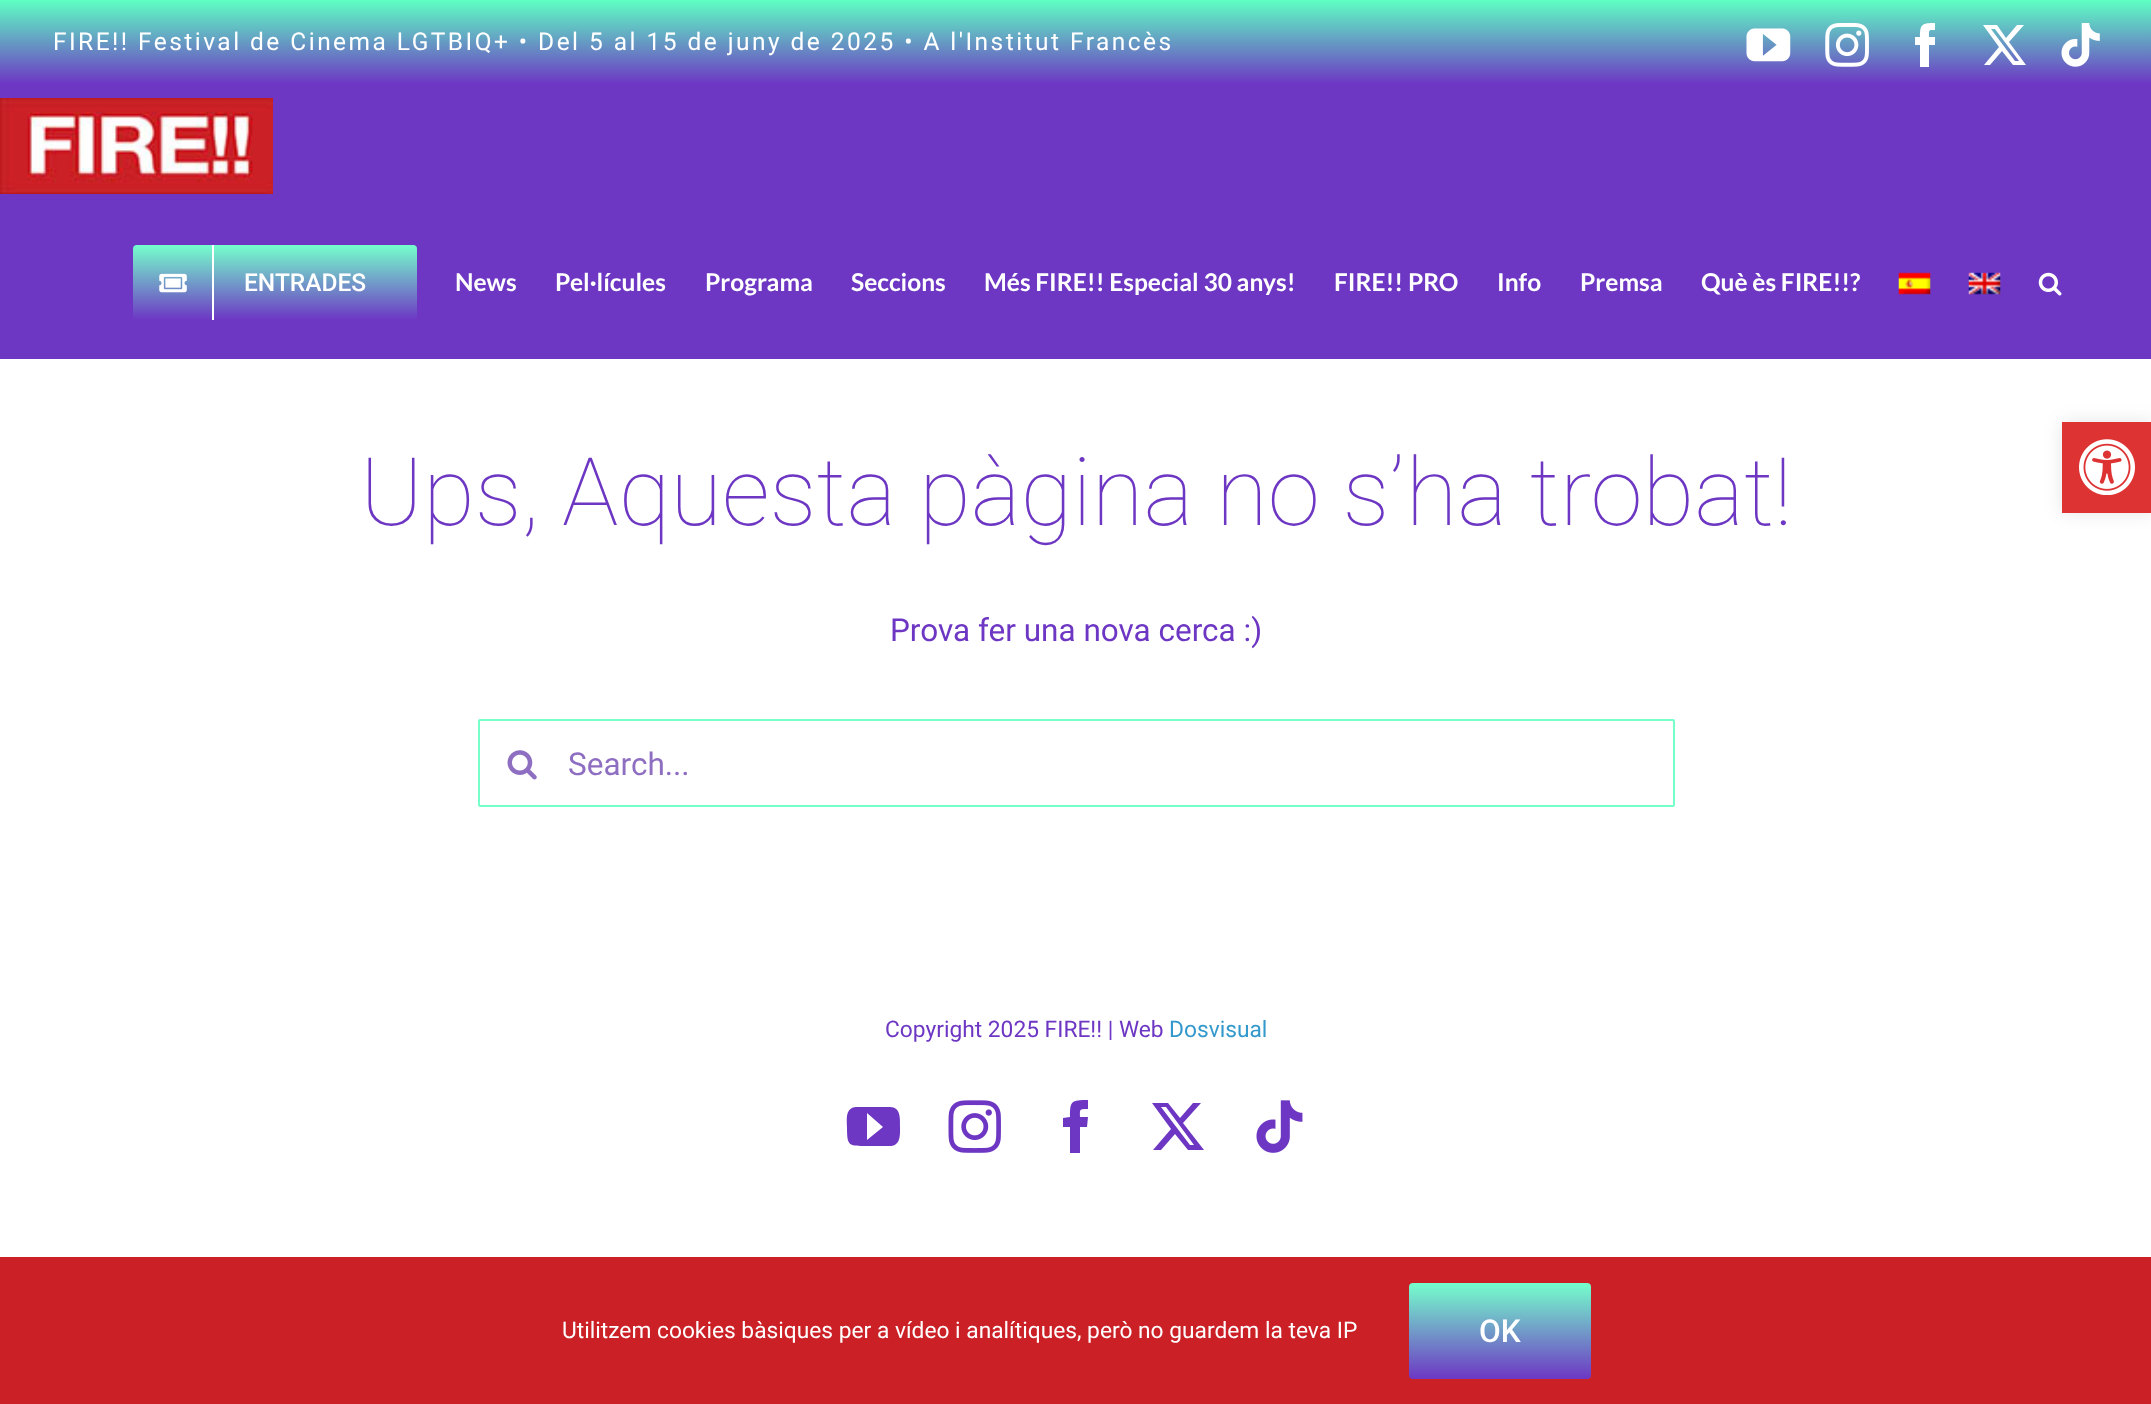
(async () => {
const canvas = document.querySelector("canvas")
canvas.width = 2151
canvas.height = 1404
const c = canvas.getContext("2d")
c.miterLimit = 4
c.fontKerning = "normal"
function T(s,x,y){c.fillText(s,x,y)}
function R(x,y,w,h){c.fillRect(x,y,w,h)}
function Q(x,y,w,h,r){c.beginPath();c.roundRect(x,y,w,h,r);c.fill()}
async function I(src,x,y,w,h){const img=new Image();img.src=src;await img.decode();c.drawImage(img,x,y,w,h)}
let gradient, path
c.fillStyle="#fff"
R(0,0,2151,1404)
gradient = c.createLinearGradient(1076,84,1076,0)
gradient.addColorStop(0,"#6d37c4")
gradient.addColorStop(1,"#5effc3")
c.fillStyle = gradient
R(0,0,2151,84)
c.letterSpacing="2.45px"
c.font="24.5px Roboto"
c.fillStyle="#fff"
T("FIRE!! Festival de Cinema LGTBIQ+ • Del 5 al 15 de juny de 2025 • A l'Institut Francès",53,50)
await I("1.png",1746,28,45,34)
await I("2.png",1825,23,44,44)
path = new Path2D("M1929 67h-9v-22h-5v-8h5c0-13 2-14 15-14v7c-7 0-6 0-6 7h6v8h-6z")
c.fill(path)
path = new Path2D("M2017 25h7l-15 17l17 23h-13l-11-14l-12 14h-6l15-18l-16-22h14l9 13zm-2 36h4l-24-32h-4z")
c.fill(path)
await I("3.png",2061,23,39,44)
c.fillStyle="#6d37c4"
R(0,84,2151,275)
await I("4.png",0,98,273,96)
gradient = c.createLinearGradient(275,245,275,320)
gradient.addColorStop(0,"#75ffcc")
gradient.addColorStop(1,"#6d37c4")
c.fillStyle = gradient
Q(133,245,284,75,4)
c.fillStyle="#fff"
R(212,245,2,75)
await I("5.png",159,273,28,20)
c.letterSpacing="0px"
c.font="500 24.5px Roboto"
T("ENTRADES",244,291)
c.font="bold 24.5px Lato"
T("News",455,291)
T("Pel·lícules",555,291)
T("Programa",705,291)
T("Seccions",851,291)
T("Més FIRE!! Especial 30 anys!",984,291)
T("FIRE!! PRO",1334,291)
T("Info",1497,291)
T("Premsa",1580,291)
T("Què ès FIRE!!?",1701,291)
await I("6.png",1898,272,33,23)
await I("7.png",1968,272,33,23)
await I("8.png",2038,272,24,24)
c.font="100 94.5px Roboto"
c.fillStyle="#6d37c4"
T("Ups, Aquesta pàgina no s’ha trobat!",360,525)
c.font="31.5px Roboto"
T("Prova fer una nova cerca :)",890,641)
c.beginPath()
c.roundRect(479,720,1195,86,1)
c.strokeStyle="#75ffc9"
c.lineWidth=2
c.stroke()
await I("9.png",507,750,30,30)
c.fillStyle="#8e6ec1"
T("Search...",568,775)
c.font="22.75px Roboto"
c.fillStyle="#6d37c4"
T("Copyright 2025 FIRE!! | Web",885,1037)
c.fillStyle="#39c"
T("Dosvisual",1169,1037)
c.fillStyle="#6d37c3"
path = new Path2D("M890 1107h-34c-11 1-9 12-9 20c0 19 1 19 21 19h23c10-1 9-12 9-19c0-8 1-20-10-20zm-23 33v-27l16 14z")
c.fill(path)
await I("10.png",948,1100,53,53)
path = new Path2D("M1080 1153h-10v-26h-7v-9l7-1c0-16 1-17 18-17v9c-9 0-8 0-8 8h8l-1 10h-7z")
c.fill(path)
path = new Path2D("M1193 1103h8l-18 20l21 27h-16l-13-16l-14 16h-8l18-21l-19-26h16l12 15zm-3 42h4l-28-38h-5z")
c.fill(path)
await I("11.png",1256,1100,47,53)
c.fillStyle="#0000001a"
c.filter="blur(9px)"
c.beginPath()
c.rect(2062,422,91,91)
c.fill()
c.filter="none"
c.fillStyle="#d33"
R(2062,422,89,91)
await I("12.png",2079,439,56,56)
c.fillStyle="#cb2026"
R(0,1257,2151,147)
c.fillStyle="#fff"
T("Utilitzem cookies bàsiques per a vídeo i analítiques, però no guardem la teva IP",562,1338)
gradient = c.createLinearGradient(1500,1283,1500,1379)
gradient.addColorStop(0,"#75ffcc")
gradient.addColorStop(1,"#6d37c4")
c.fillStyle = gradient
Q(1409,1283,182,96,4)
c.font="500 31.5px Roboto"
c.fillStyle="#fff"
T("OK",1479,1342)
})()
